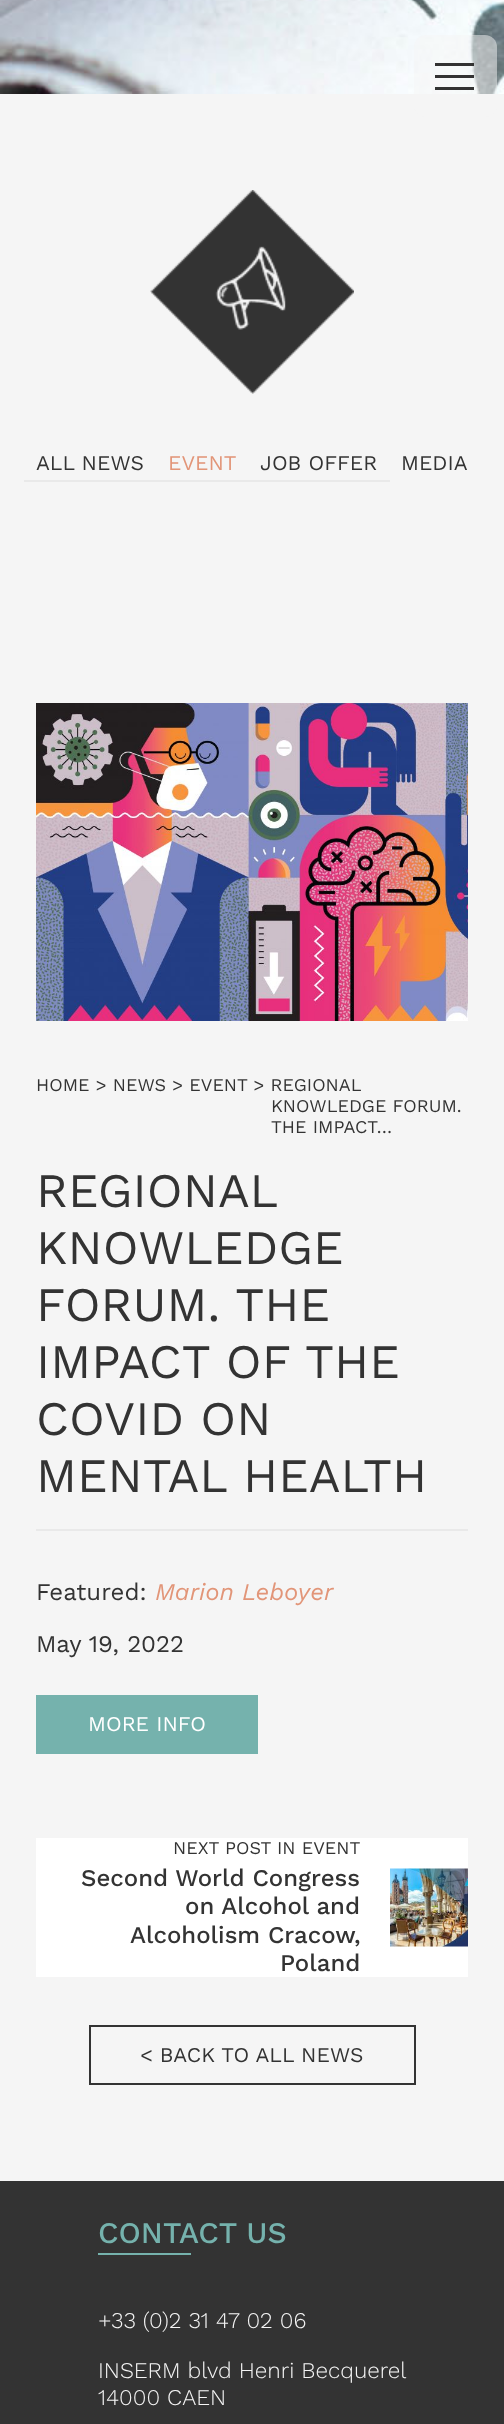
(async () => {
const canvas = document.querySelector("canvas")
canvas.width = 504
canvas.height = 2424
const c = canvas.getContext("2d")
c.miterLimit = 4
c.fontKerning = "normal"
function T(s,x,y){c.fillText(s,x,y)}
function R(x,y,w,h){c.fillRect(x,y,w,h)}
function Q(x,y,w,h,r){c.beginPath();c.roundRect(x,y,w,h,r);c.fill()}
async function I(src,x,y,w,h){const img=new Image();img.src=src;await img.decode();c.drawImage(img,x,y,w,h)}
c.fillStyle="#f5f5f5"
R(0,0,504,2424)
await I("1.png",0,0,504,94)
c.fillStyle="#f5f5f580"
Q(414,35,83,82,12)
c.fillStyle="#333"
R(435,75,39,3)
R(435,63,39,3)
R(435,87,39,3)
await I("2.png",150,190,204,204)
c.fillStyle="#e9e9e9"
R(24,480,366,2)
c.font="21px Work Sans"
c.fillStyle="#333"
T("ALL NEWS",36,470)
c.fillStyle="#e29578"
T("EVENT",168,470)
c.fillStyle="#333"
T("JOB OFFER",260,470)
T("MEDIA",401,470)
await I("3.png",36,703,432,318)
c.font="18px Work Sans"
T("HOME > NEWS > EVENT > REGIONAL",36,1091)
T("KNOWLEDGE FORUM.",271,1112)
T("THE IMPACT…",271,1133)
c.fillStyle="#e9e9e9"
R(36,1529,432,2)
c.font="48px Work Sans"
c.fillStyle="#333"
T("REGIONAL",36,1207)
T("KNOWLEDGE",36,1264)
T("FORUM. THE",36,1321)
T("IMPACT OF THE",36,1378)
T("COVID ON",36,1435)
T("MENTAL HEALTH",36,1492)
c.font="24px Work Sans"
T("Featured:",36,1600)
c.font="italic 24px Work Sans"
c.fillStyle="#e29578"
T("Marion Leboyer",155,1600)
c.font="24px Work Sans"
c.fillStyle="#333"
T("May 19, 2022",36,1652)
c.fillStyle="#75b2ad"
R(36,1695,222,59)
c.font="21px Work Sans"
c.fillStyle="#fff"
T("MORE INFO",88,1731)
R(36,1838,432,139)
c.font="18px Work Sans"
c.fillStyle="#333"
T("NEXT POST IN EVENT",173,1854)
c.font="500 24px Work Sans"
T("Second World Congress",81,1886)
T("on Alcohol and",185,1914)
T("Alcoholism Cracow,",130,1943)
T("Poland",280,1971)
await I("4.png",390,1868,78,79)
c.strokeStyle="#333"
c.lineWidth=2
c.strokeRect(90,2026,325,58)
c.font="21px Work Sans"
T("< BACK TO ALL NEWS",140,2062)
R(0,2181,504,243)
c.font="500 30px Work Sans"
c.fillStyle="#75b2ad"
T("CONTACT US",98,2243)
R(98,2253,93,2)
c.font="300 22.5px Work Sans"
c.fillStyle="#f5f5f5"
T("+33 (0)2 31 47 02 06",98,2328)
T("INSERM blvd Henri Becquerel",98,2378)
T("14000 CAEN",98,2405)
})()
